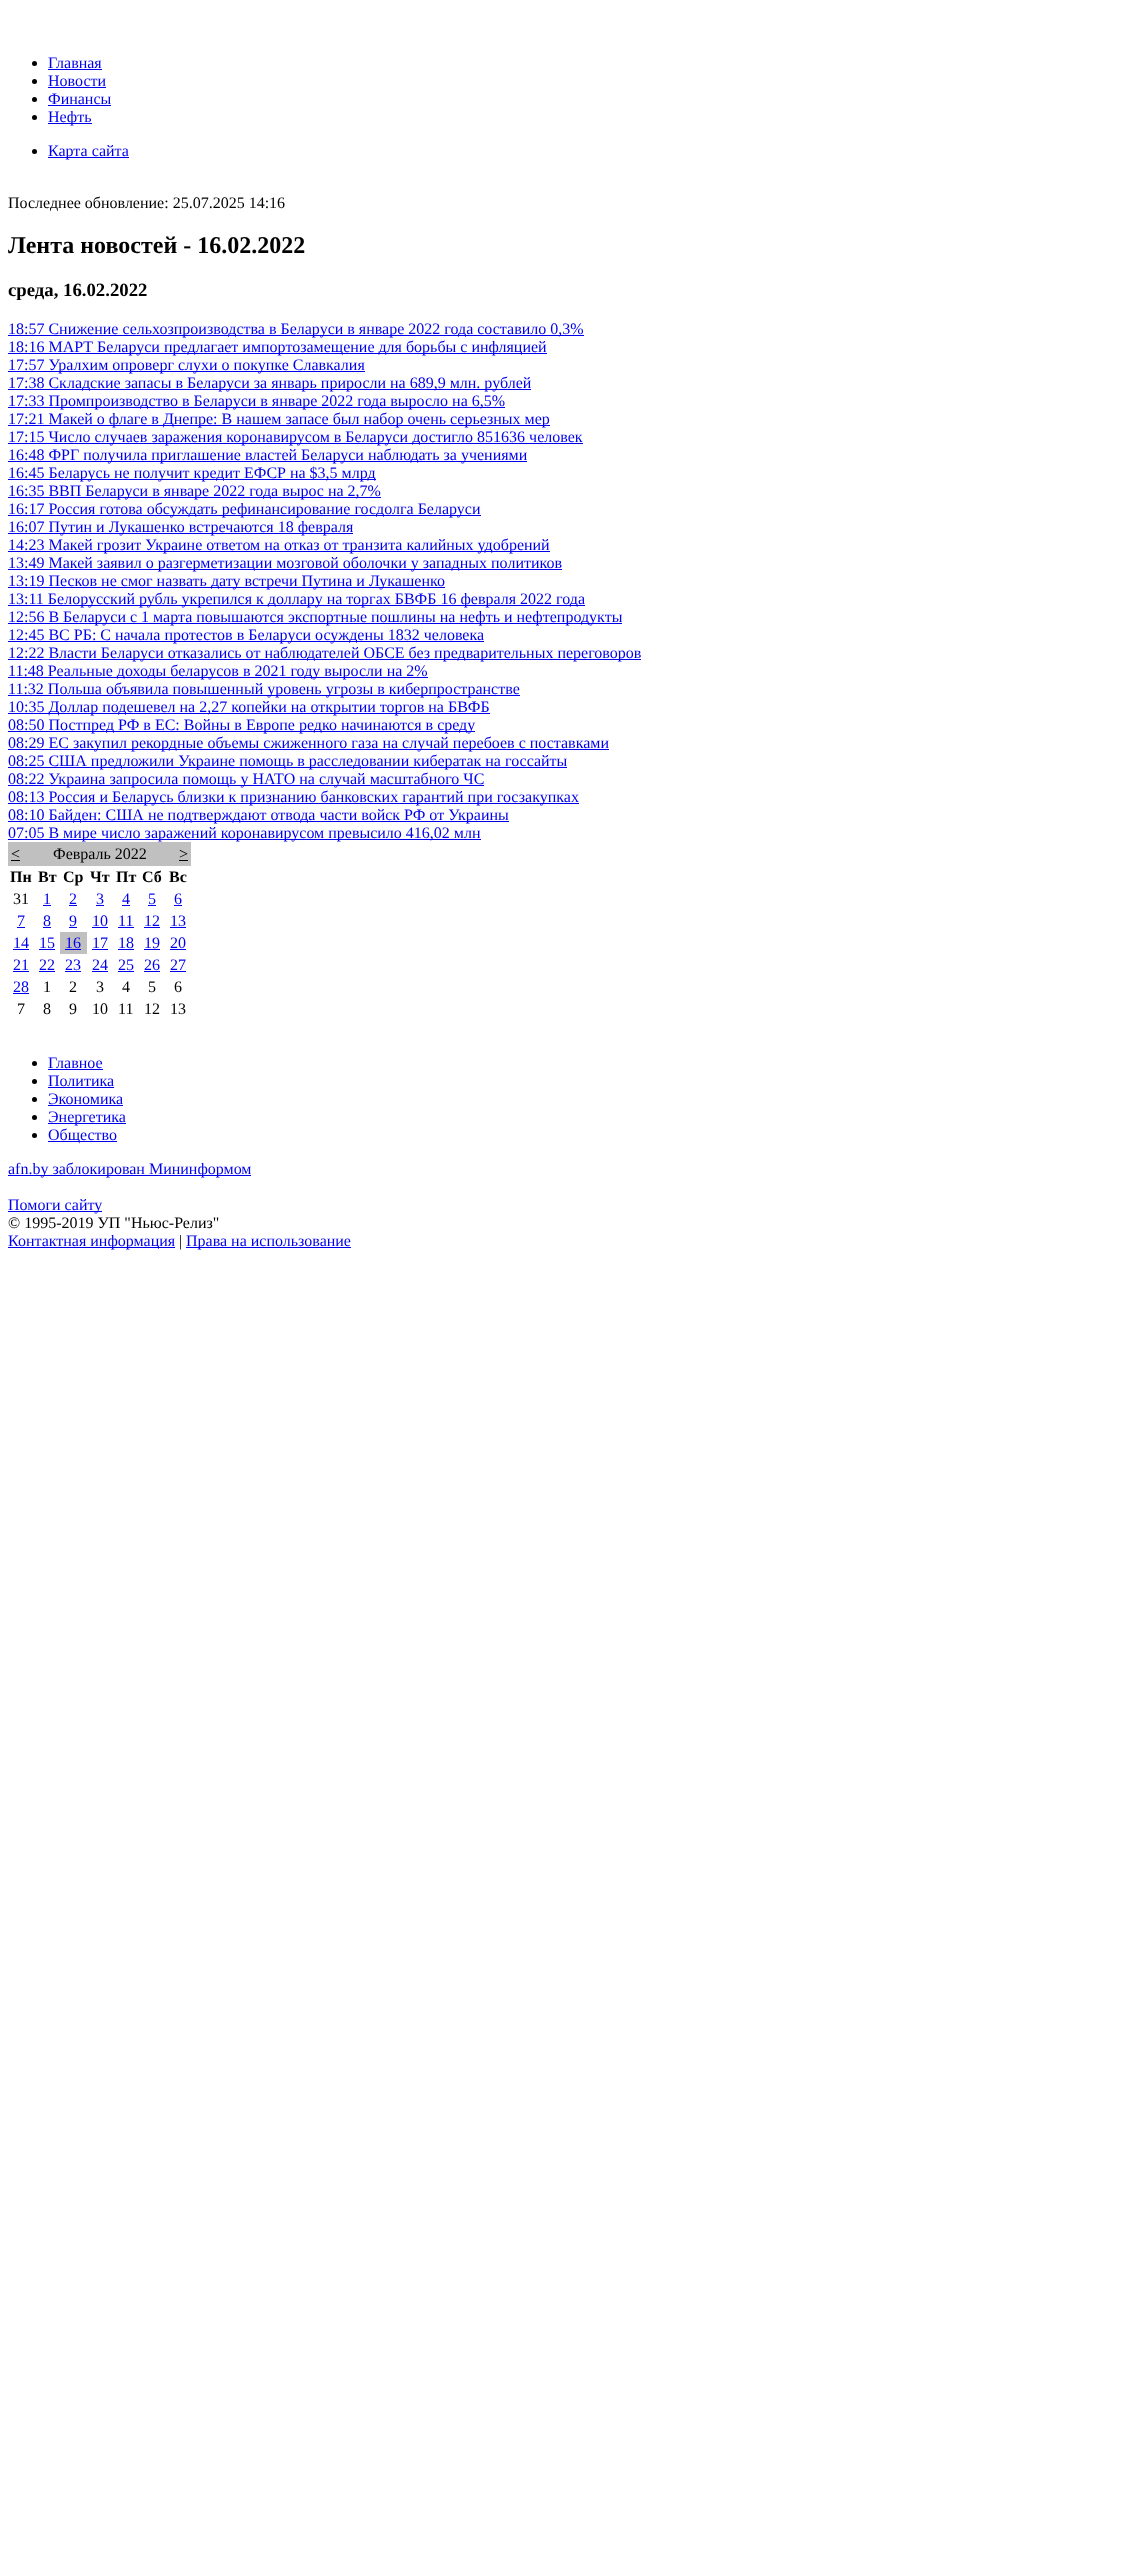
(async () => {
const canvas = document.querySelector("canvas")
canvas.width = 1123
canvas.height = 2559
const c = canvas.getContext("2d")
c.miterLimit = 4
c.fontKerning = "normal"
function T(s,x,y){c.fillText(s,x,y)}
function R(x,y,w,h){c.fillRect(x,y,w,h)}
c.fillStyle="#fff"
R(0,0,1123,2559)
c.fillStyle="#000"
c.beginPath()
c.arc(34.5,63.5,2.5,0,7)
c.fill()
c.font="16px Liberation Serif"
c.fillStyle="#00e"
T("Главная",48,68)
R(48,69,54,1)
c.fillStyle="#000"
c.beginPath()
c.arc(34.5,81.5,2.5,0,7)
c.fill()
c.fillStyle="#00e"
T("Новости",48,86)
R(48,87,58,1)
c.fillStyle="#000"
c.beginPath()
c.arc(34.5,99.5,2.5,0,7)
c.fill()
c.fillStyle="#00e"
T("Финансы",48,104)
R(48,105,63,1)
c.fillStyle="#000"
c.beginPath()
c.arc(34.5,117.5,2.5,0,7)
c.fill()
c.fillStyle="#00e"
R(48,123,44,1)
T("Нефть",48,122)
c.fillStyle="#000"
c.beginPath()
c.arc(34.5,151.5,2.5,0,7)
c.fill()
c.fillStyle="#00e"
R(48,157,81,1)
T("Карта сайта",48,156)
c.fillStyle="#000"
T("Последнее обновление: 25.07.2025 14:16",8,208)
c.font="bold 24px Liberation Serif"
T("Лента новостей - 16.02.2022",8,253)
c.font="bold 18.75px Liberation Serif"
T("среда, 16.02.2022",8,296)
c.fillStyle="#00e"
R(8,335,576,1)
c.font="16px Liberation Serif"
T("18:57 Снижение сельхозпроизводства в Беларуси в январе 2022 года составило 0,3%",8,334)
R(8,353,539,1)
T("18:16 МАРТ Беларуси предлагает импортозамещение для борьбы с инфляцией",8,352)
R(8,371,357,1)
T("17:57 Уралхим опроверг слухи о покупке Славкалия",8,370)
R(8,389,523,1)
T("17:38 Складские запасы в Беларуси за январь приросли на 689,9 млн. рублей",8,388)
R(8,407,497,1)
T("17:33 Промпроизводство в Беларуси в январе 2022 года выросло на 6,5%",8,406)
R(8,425,542,1)
T("17:21 Макей о флаге в Днепре: В нашем запасе был набор очень серьезных мер",8,424)
R(8,443,575,1)
T("17:15 Число случаев заражения коронавирусом в Беларуси достигло 851636 человек",8,442)
R(8,461,519,1)
T("16:48 ФРГ получила приглашение властей Беларуси наблюдать за учениями",8,460)
R(8,479,368,1)
T("16:45 Беларусь не получит кредит ЕФСР на $3,5 млрд",8,478)
R(8,497,373,1)
T("16:35 ВВП Беларуси в январе 2022 года вырос на 2,7%",8,496)
R(8,515,473,1)
T("16:17 Россия готова обсуждать рефинансирование госдолга Беларуси",8,514)
R(8,533,345,1)
T("16:07 Путин и Лукашенко встречаются 18 февраля",8,532)
R(8,551,542,1)
T("14:23 Макей грозит Украине ответом на отказ от транзита калийных удобрений",8,550)
R(8,569,554,1)
T("13:49 Макей заявил о разгерметизации мозговой оболочки у западных политиков",8,568)
R(8,587,437,1)
T("13:19 Песков не смог назвать дату встречи Путина и Лукашенко",8,586)
R(8,605,577,1)
T("13:11 Белорусский рубль укрепился к доллару на торгах БВФБ 16 февраля 2022 года",8,604)
R(8,623,614,1)
T("12:56 В Беларуси с 1 марта повышаются экспортные пошлины на нефть и нефтепродукты",8,622)
R(8,641,476,1)
T("12:45 ВС РБ: С начала протестов в Беларуси осуждены 1832 человека",8,640)
R(8,659,633,1)
T("12:22 Власти Беларуси отказались от наблюдателей ОБСЕ без предварительных переговоров",8,658)
R(8,677,420,1)
T("11:48 Реальные доходы беларусов в 2021 году выросли на 2%",8,676)
R(8,695,512,1)
T("11:32 Польша объявила повышенный уровень угрозы в киберпространстве",8,694)
R(8,713,482,1)
T("10:35 Доллар подешевел на 2,27 копейки на открытии торгов на БВФБ",8,712)
R(8,731,467,1)
T("08:50 Постпред РФ в ЕС: Войны в Европе редко начинаются в среду",8,730)
R(8,749,601,1)
T("08:29 ЕС закупил рекордные объемы сжиженного газа на случай перебоев с поставками",8,748)
R(8,767,559,1)
T("08:25 США предложили Украине помощь в расследовании кибератак на госсайты",8,766)
R(8,785,476,1)
T("08:22 Украина запросила помощь у НАТО на случай масштабного ЧС",8,784)
R(8,803,571,1)
T("08:13 Россия и Беларусь близки к признанию банковских гарантий при госзакупках",8,802)
R(8,821,501,1)
T("08:10 Байден: США не подтверждают отвода части войск РФ от Украины",8,820)
R(8,839,473,1)
T("07:05 В мире число заражений коронавирусом превысило 416,02 млн",8,838)
c.fillStyle="#c0c0c0"
R(8,842,183,24)
c.fillStyle="#000"
T("<",11,859)
R(11,860,9,1)
T("Февраль 2022",53,859)
T(">",179,859)
R(179,860,9,1)
c.font="bold 16px Liberation Serif"
T("Пн",10,882)
T("Вт",38,882)
T("Ср",63,882)
T("Чт",90,882)
T("Пт",116,882)
T("Сб",142,882)
T("Вс",169,882)
c.font="16px Liberation Serif"
T("31",13,904)
c.fillStyle="#00e"
T("1",43,904)
R(43,905,8,1)
T("2",69,904)
R(69,905,8,1)
T("3",96,904)
R(96,905,8,1)
T("4",122,904)
R(122,905,8,1)
T("5",148,904)
R(148,905,8,1)
T("6",174,904)
R(174,905,8,1)
T("7",17,926)
R(17,927,8,1)
T("8",43,926)
R(43,927,8,1)
T("9",69,926)
R(69,927,8,1)
T("10",92,926)
R(92,927,16,1)
T("11",118,926)
R(118,927,16,1)
T("12",144,926)
R(144,927,16,1)
T("13",170,926)
R(170,927,16,1)
T("14",13,948)
R(13,949,16,1)
T("15",39,948)
R(39,949,16,1)
c.fillStyle="#c0c0c0"
R(60,932,27,22)
c.fillStyle="#00e"
T("16",65,948)
R(65,949,16,1)
T("17",92,948)
R(92,949,16,1)
T("18",118,948)
R(118,949,16,1)
T("19",144,948)
R(144,949,16,1)
T("20",170,948)
R(170,949,16,1)
T("21",13,970)
R(13,971,16,1)
T("22",39,970)
R(39,971,16,1)
T("23",65,970)
R(65,971,16,1)
T("24",92,970)
R(92,971,16,1)
T("25",118,970)
R(118,971,16,1)
T("26",144,970)
R(144,971,16,1)
T("27",170,970)
R(170,971,16,1)
T("28",13,992)
R(13,993,16,1)
c.fillStyle="#000"
T("1",43,992)
T("2",69,992)
T("3",96,992)
T("4",122,992)
T("5",148,992)
T("6",174,992)
T("7",17,1014)
T("8",43,1014)
T("9",69,1014)
T("10",92,1014)
T("11",118,1014)
T("12",144,1014)
T("13",170,1014)
c.beginPath()
c.arc(34.5,1063.5,2.5,0,7)
c.fill()
c.fillStyle="#00e"
T("Главное",48,1068)
R(48,1069,55,1)
c.fillStyle="#000"
c.beginPath()
c.arc(34.5,1081.5,2.5,0,7)
c.fill()
c.fillStyle="#00e"
T("Политика",48,1086)
R(48,1087,66,1)
c.fillStyle="#000"
c.beginPath()
c.arc(34.5,1099.5,2.5,0,7)
c.fill()
c.fillStyle="#00e"
T("Экономика",48,1104)
R(48,1105,75,1)
c.fillStyle="#000"
c.beginPath()
c.arc(34.5,1117.5,2.5,0,7)
c.fill()
c.fillStyle="#00e"
R(48,1123,78,1)
T("Энергетика",48,1122)
c.fillStyle="#000"
c.beginPath()
c.arc(34.5,1135.5,2.5,0,7)
c.fill()
c.fillStyle="#00e"
R(48,1141,69,1)
T("Общество",48,1140)
R(8,1175,243,1)
T("afn.by заблокирован Мининформом",8,1174)
R(8,1211,94,1)
T("Помоги сайту",8,1210)
c.fillStyle="#000"
T("© 1995-2019 УП \"Ньюс-Релиз\"",8,1228)
c.fillStyle="#00e"
R(8,1247,167,1)
T("Контактная информация",8,1246)
c.fillStyle="#000"
T("|",179,1246)
c.fillStyle="#00e"
R(186,1247,165,1)
T("Права на использование",186,1246)
})()
